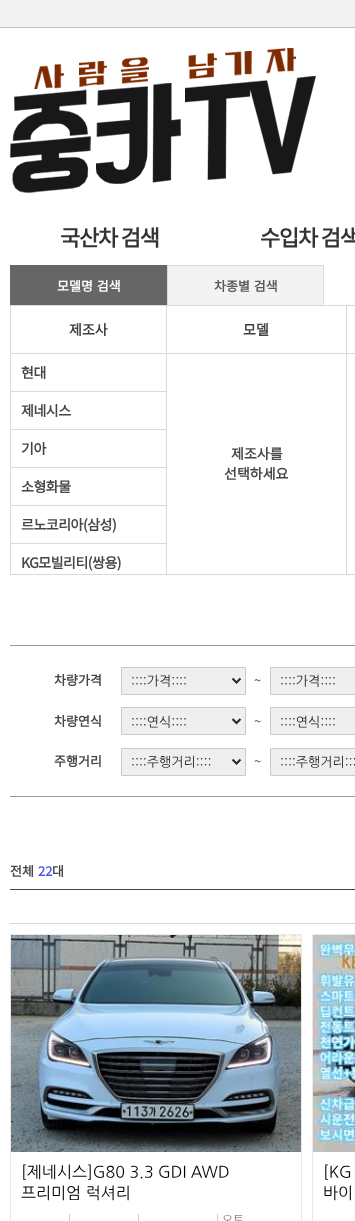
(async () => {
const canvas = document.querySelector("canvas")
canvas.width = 355
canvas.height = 1221
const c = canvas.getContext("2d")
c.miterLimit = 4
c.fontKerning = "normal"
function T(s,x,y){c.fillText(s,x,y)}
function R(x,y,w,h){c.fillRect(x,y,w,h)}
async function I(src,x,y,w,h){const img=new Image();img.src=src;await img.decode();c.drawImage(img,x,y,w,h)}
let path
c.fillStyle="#fff"
R(0,0,355,1221)
c.fillStyle="#f3f3f3"
R(0,0,355,27)
c.fillStyle="#bdbdbd"
R(0,27,355,1)
await I("1.png",10,48,306,145)
c.letterSpacing="-1.25px"
c.font="bold 22px Noto Sans KR"
c.fillStyle="#333"
T("국산차 검색",60,246)
T("수입차 검색",260,246)
c.fillStyle="#666"
R(11,266,155,39)
R(10,265,157,1)
R(166,265,1,41)
R(10,265,1,41)
c.letterSpacing="0px"
c.wordSpacing="1px"
c.font="bold 13px Noto Sans KR"
c.fillStyle="#fff"
T("모델명 검색",57,291)
c.fillStyle="#f3f3f3"
R(168,266,155,39)
c.fillStyle="#dadada"
R(167,265,157,1)
R(323,265,1,41)
R(167,265,1,41)
c.fillStyle="#585858"
T("차종별 검색",214,291)
c.fillStyle="#dadada"
R(10,305,345,1)
R(10,574,345,1)
R(10,305,1,270)
R(166,306,1,268)
R(11,353,155,1)
c.wordSpacing="0px"
c.font="bold 14px Noto Sans KR"
c.fillStyle="#404040"
T("제조사",69,335)
c.fillStyle="#dadada"
R(11,391,155,1)
c.letterSpacing="-0.5px"
c.fillStyle="#464646"
T("현대",21,378)
c.fillStyle="#dadada"
R(11,429,155,1)
c.fillStyle="#464646"
T("제네시스",21,416)
c.fillStyle="#dadada"
R(11,467,155,1)
c.fillStyle="#464646"
T("기아",21,454)
c.fillStyle="#dadada"
R(11,505,155,1)
c.fillStyle="#464646"
T("소형화물",21,492)
c.fillStyle="#dadada"
R(11,543,155,1)
c.fillStyle="#464646"
T("르노코리아(삼성)",21,530)
T("KG모빌리티(쌍용)",21,568)
c.fillStyle="#dadada"
R(346,306,1,268)
R(167,353,179,1)
c.letterSpacing="0px"
c.fillStyle="#404040"
T("모델",243,335)
c.fillStyle="#464646"
T("제조사를",231,459)
T("선택하세요",224,479)
c.fillStyle="#dadada"
R(347,353,8,1)
c.fillStyle="#999"
R(10,645,345,1)
R(10,796,345,1)
c.font="bold 13px Noto Sans KR"
c.fillStyle="#464646"
T("차량가격",54,685)
c.fillStyle="#efefef"
c.beginPath()
c.rect(121.5,667.5,124,27)
c.fill()
c.strokeStyle="#cacaca"
c.stroke()
path = new Path2D("M232.5 678.5l4 4l4-4")
c.strokeStyle="#262626"
c.lineWidth=2
c.stroke(path)
c.font="13px NanumGothic"
c.fillStyle="#262626"
T("::::가격::::",131,685)
c.font="100 13px Noto Sans KR"
c.fillStyle="#464646"
T("~",254,685)
c.fillStyle="#efefef"
c.beginPath()
c.rect(270.5,667.5,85,27)
c.fill()
c.strokeStyle="#cacaca"
c.lineWidth=1
c.stroke()
c.font="13px NanumGothic"
c.fillStyle="#262626"
T("::::가격::::",280,685)
c.font="bold 13px Noto Sans KR"
c.fillStyle="#464646"
T("차량연식",54,726)
c.fillStyle="#efefef"
c.beginPath()
c.rect(121.5,707.5,124,27)
c.fill()
c.stroke()
path = new Path2D("M232.5 719l4 4l4-4")
c.strokeStyle="#262626"
c.lineWidth=2
c.stroke(path)
c.font="13px NanumGothic"
c.fillStyle="#262626"
T("::::연식::::",131,726)
c.font="100 13px Noto Sans KR"
c.fillStyle="#464646"
T("~",254,726)
c.fillStyle="#efefef"
c.beginPath()
c.rect(270.5,707.5,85,27)
c.fill()
c.strokeStyle="#cacaca"
c.lineWidth=1
c.stroke()
c.font="13px NanumGothic"
c.fillStyle="#262626"
T("::::연식::::",280,726)
c.font="bold 13px Noto Sans KR"
c.fillStyle="#464646"
T("주행거리",54,766)
c.fillStyle="#efefef"
c.beginPath()
c.rect(121.5,748.5,124,27)
c.fill()
c.stroke()
path = new Path2D("M232.5 759.5l4 4l4-4")
c.strokeStyle="#262626"
c.lineWidth=2
c.stroke(path)
c.font="13px NanumGothic"
c.fillStyle="#262626"
T("::::주행거리::::",131,766)
c.font="100 13px Noto Sans KR"
c.fillStyle="#464646"
T("~",254,766)
c.fillStyle="#efefef"
c.beginPath()
c.rect(270.5,748.5,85,27)
c.fill()
c.strokeStyle="#cacaca"
c.lineWidth=1
c.stroke()
c.font="13px NanumGothic"
c.fillStyle="#262626"
T("::::주행거리:::",280,766)
c.font="bold 13px Noto Sans KR"
c.fillStyle="#464646"
T("전체",10,876)
c.fillStyle="#4959ec"
T("22",38,876)
c.fillStyle="#464646"
T("대",52,876)
c.fillStyle="#444"
R(10,889,345,1)
c.fillStyle="#d7d7d7"
R(10,923,345,1)
c.strokeStyle="#e9e9e9"
c.strokeRect(10.5,934.5,291,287)
await I("2.png",11,935,290,217)
c.font="16px NanumGothic"
c.fillStyle="#000"
T("[제네시스]G80 3.3 GDI AWD",21,1177)
T("프리미엄 럭셔리",21,1198)
c.fillStyle="#ccc"
R(69,1214,1,7)
R(138,1214,1,7)
R(217,1214,1,7)
c.font="100 12px Noto Sans KR"
c.fillStyle="#888"
T("오토",222,1224)
c.strokeRect(312.5,934.5,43,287)
await I("3.png",313,935,42,217)
c.font="16px NanumGothic"
c.fillStyle="#000"
T("[KG",323,1177)
T("바이",323,1198)
})()
